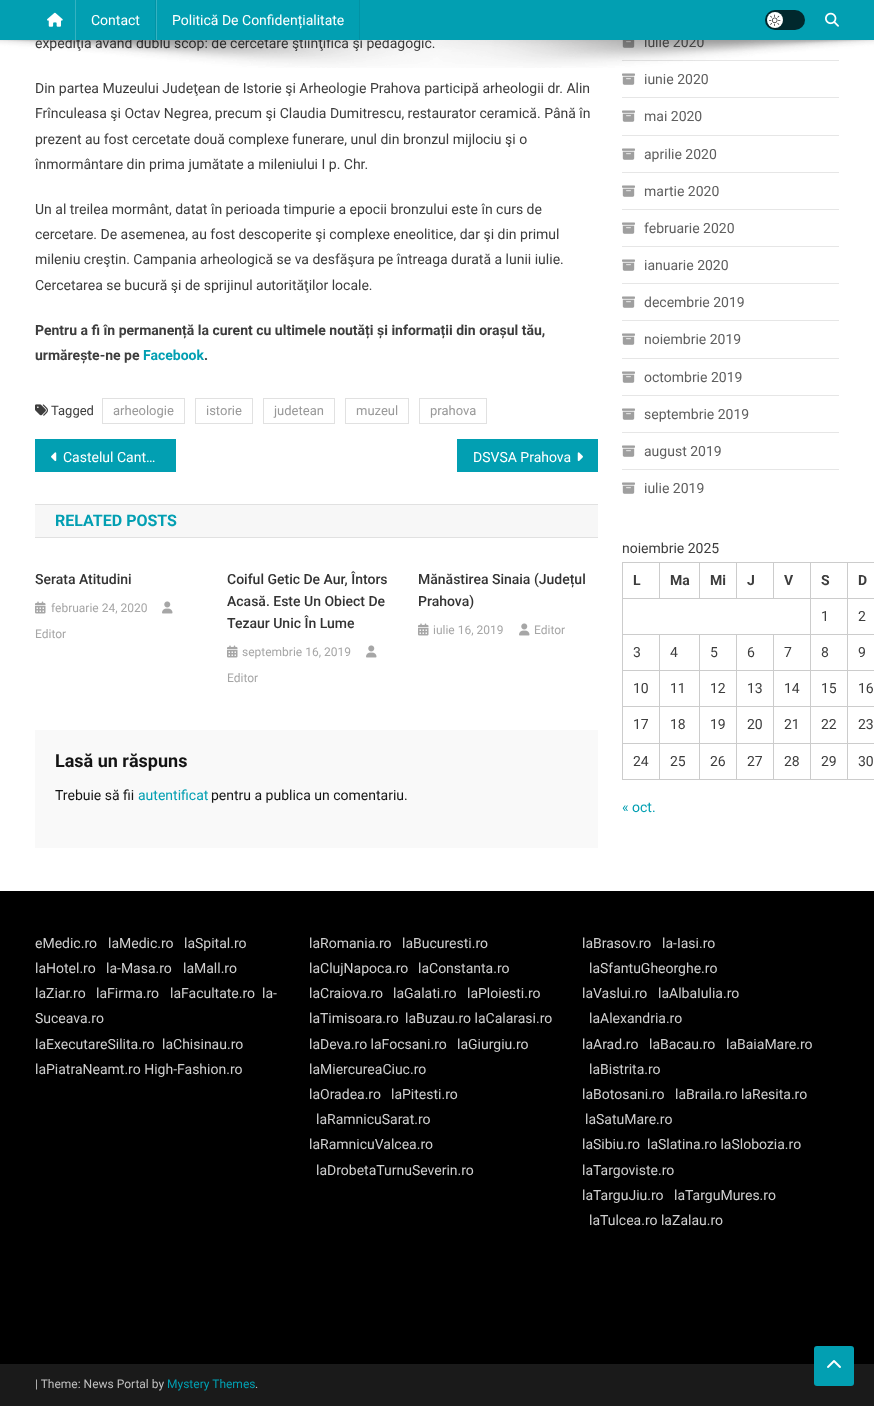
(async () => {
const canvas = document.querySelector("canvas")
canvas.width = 874
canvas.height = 1406
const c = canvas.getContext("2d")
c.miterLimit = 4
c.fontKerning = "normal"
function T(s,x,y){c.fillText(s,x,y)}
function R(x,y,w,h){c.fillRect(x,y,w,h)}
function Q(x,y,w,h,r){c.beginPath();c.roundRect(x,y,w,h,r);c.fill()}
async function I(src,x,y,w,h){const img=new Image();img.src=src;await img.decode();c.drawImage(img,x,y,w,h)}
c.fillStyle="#fff"
R(0,0,874,1406)
c.font="14px Roboto"
c.fillStyle="#3d3d3d"
T("expediţia având dublu scop: de cercetare ştiinţifică şi pedagogic.",35,48)
c.fillStyle="#5f5f5f"
T("iulie 2020",644,47)
c.fillStyle="#029fb2"
R(0,0,874,40)
await I("1.png",47,12,16,15)
c.fillStyle="#0292a4"
R(155,0,1,40)
c.fillStyle="#35b2c1"
R(75,0,1,40)
c.fillStyle="#fff"
T("Contact",91,25)
c.fillStyle="#0292a4"
R(359,0,1,40)
c.fillStyle="#35b2c1"
R(156,0,1,40)
c.fillStyle="#fff"
T("Politică De Confidențialitate",172,25)
c.fillStyle="#01282d"
Q(765,10,40,20,10)
c.fillStyle="#fff"
c.beginPath()
c.arc(775,20,8,0,7)
c.fill()
await I("2.png",769,14,12,12)
await I("3.png",825,12,14,15)
c.fillStyle="#e6e6e6"
R(622,60,217,1)
await I("10.png",622,40,13,8)
await I("4.png",0,40,874,28)
c.fillStyle="#3d3d3d"
T("Din partea Muzeului Judeţean de Istorie şi Arheologie Prahova participă arheologii dr. Alin",35,93)
T("Frînculeasa şi Octav Negrea, precum şi Claudia Dumitrescu, restaurator ceramică. Până în",35,118)
T("prezent au fost cercetate două complexe funerare, unul din bronzul mijlociu şi o",35,144)
T("înmormântare din prima jumătate a mileniului I p. Chr.",35,169)
T("Un al treilea mormânt, datat în perioada timpurie a epocii bronzului este în curs de",35,214)
T("cercetare. De asemenea, au fost descoperite şi complexe eneolitice, dar şi din primul",35,239)
T("mileniu creştin. Campania arheologică se va desfăşura pe întreaga durată a lunii iulie.",35,264)
T("Cercetarea se bucură şi de sprijinul autorităţilor locale.",35,290)
c.font="bold 14px Roboto"
T("Pentru a fi în permanență la curent cu ultimele noutăți și informații din orașul tău,",35,335)
T("urmărește-ne pe",35,360)
c.fillStyle="#029fb2"
T("Facebook",143,360)
c.fillStyle="#3d3d3d"
T(".",204,360)
await I("5.png",35,404,13,12)
c.font="13px Roboto"
T("Tagged",51,415)
c.strokeStyle="#e1e1e1"
c.strokeRect(102.5,398.5,82,25)
c.fillStyle="#999"
T("arheologie",113,415)
c.strokeRect(195.5,398.5,57,25)
T("istorie",206,415)
c.strokeRect(263.5,398.5,71,25)
T("judetean",274,415)
c.strokeRect(345.5,398.5,63,25)
T("muzeul",356,415)
c.strokeRect(419.5,398.5,67,25)
T("prahova",430,415)
c.fillStyle="#029fb2"
R(35,439,141,33)
await I("6.png",51,452,6,10)
c.font="14px Roboto"
c.fillStyle="#fff"
T("Castelul Cant…",63,462)
c.fillStyle="#029fb2"
R(457,439,141,33)
c.fillStyle="#fff"
T("DSVSA Prahova",473,462)
await I("7.png",577,452,6,10)
c.fillStyle="#f7f7f7"
R(35,505,563,32)
c.fillStyle="#e1e1e1"
R(35,504,563,1)
R(35,537,563,1)
c.font="bold 16px Roboto"
c.fillStyle="#029fb2"
T("RELATED POSTS",55,526)
c.font="500 14px Roboto"
c.fillStyle="#333"
T("Serata Atitudini",35,584)
await I("8.png",35,601,11,13)
c.font="12px Roboto"
c.fillStyle="#a6a6a6"
T("februarie 24, 2020",51,612)
await I("9.png",162,601,11,13)
T("Editor",35,638)
c.font="500 14px Roboto"
c.fillStyle="#333"
T("Coiful Getic De Aur, Întors",227,584)
T("Acasă. Este Un Obiect De",227,606)
T("Tezaur Unic În Lume",227,628)
await I("8.png",227,645,11,13)
c.font="12px Roboto"
c.fillStyle="#a6a6a6"
T("septembrie 16, 2019",242,656)
await I("9.png",366,645,11,13)
T("Editor",227,682)
c.font="500 14px Roboto"
c.fillStyle="#333"
T("Mănăstirea Sinaia (Județul",418,584)
T("Prahova)",418,606)
await I("8.png",418,623,11,13)
c.font="12px Roboto"
c.fillStyle="#a6a6a6"
T("iulie 16, 2019",433,634)
await I("9.png",519,623,11,13)
T("Editor",534,634)
c.fillStyle="#f9f9f9"
R(35,730,563,118)
c.font="bold 18px Roboto"
c.fillStyle="#141414"
T("Lasă un răspuns",55,767)
c.font="14px Roboto"
T("Trebuie să fii",55,800)
c.fillStyle="#029fb2"
T("autentificat",138,800)
c.fillStyle="#141414"
T("pentru a publica un comentariu.",211,800)
c.fillStyle="#e6e6e6"
R(622,97,217,1)
await I("11.png",622,73,13,12)
c.fillStyle="#5f5f5f"
T("iunie 2020",644,84)
c.fillStyle="#e6e6e6"
R(622,135,217,1)
await I("11.png",622,110,13,12)
c.fillStyle="#5f5f5f"
T("mai 2020",644,121)
c.fillStyle="#e6e6e6"
R(622,172,217,1)
await I("11.png",622,148,13,12)
c.fillStyle="#5f5f5f"
T("aprilie 2020",644,159)
c.fillStyle="#e6e6e6"
R(622,209,217,1)
await I("11.png",622,185,13,12)
c.fillStyle="#5f5f5f"
T("martie 2020",644,196)
c.fillStyle="#e6e6e6"
R(622,246,217,1)
await I("11.png",622,222,13,12)
c.fillStyle="#5f5f5f"
T("februarie 2020",644,233)
c.fillStyle="#e6e6e6"
R(622,283,217,1)
await I("11.png",622,259,13,12)
c.fillStyle="#5f5f5f"
T("ianuarie 2020",644,270)
c.fillStyle="#e6e6e6"
R(622,320,217,1)
await I("11.png",622,296,13,12)
c.fillStyle="#5f5f5f"
T("decembrie 2019",644,307)
c.fillStyle="#e6e6e6"
R(622,358,217,1)
await I("11.png",622,333,13,12)
c.fillStyle="#5f5f5f"
T("noiembrie 2019",644,344)
c.fillStyle="#e6e6e6"
R(622,395,217,1)
await I("11.png",622,371,13,12)
c.fillStyle="#5f5f5f"
T("octombrie 2019",644,382)
c.fillStyle="#e6e6e6"
R(622,432,217,1)
await I("11.png",622,408,13,12)
c.fillStyle="#5f5f5f"
T("septembrie 2019",644,419)
c.fillStyle="#e6e6e6"
R(622,469,217,1)
await I("11.png",622,445,13,12)
c.fillStyle="#5f5f5f"
T("august 2019",644,456)
await I("11.png",622,482,13,12)
T("iulie 2019",644,493)
c.fillStyle="#3d3d3d"
T("noiembrie 2025",622,553)
c.fillStyle="#ccc"
R(847,562,27,1)
R(847,598,27,1)
R(847,634,27,1)
R(847,670,27,1)
R(847,706,27,1)
R(847,743,27,1)
R(847,779,27,1)
R(847,743,1,37)
R(810,743,38,1)
R(847,706,1,38)
R(810,706,38,1)
R(847,670,1,37)
R(810,670,38,1)
R(847,634,1,37)
R(810,634,38,1)
R(847,598,1,37)
R(810,598,38,1)
R(847,562,1,37)
R(810,562,38,1)
R(810,779,38,1)
R(810,743,1,37)
R(773,743,38,1)
R(810,706,1,38)
R(773,706,38,1)
R(810,670,1,37)
R(773,670,38,1)
R(810,634,1,37)
R(773,634,38,1)
R(810,598,1,37)
R(622,598,189,1)
R(810,562,1,37)
R(773,562,38,1)
R(773,562,1,37)
R(736,562,38,1)
R(736,562,1,37)
R(699,562,38,1)
R(699,562,1,37)
R(659,562,41,1)
R(659,562,1,37)
R(622,562,38,1)
R(773,779,38,1)
R(773,743,1,37)
R(736,743,38,1)
R(773,706,1,38)
R(736,706,38,1)
R(773,670,1,37)
R(736,670,38,1)
R(773,634,1,37)
R(736,634,38,1)
R(736,779,38,1)
R(736,743,1,37)
R(699,743,38,1)
R(736,706,1,38)
R(699,706,38,1)
R(736,670,1,37)
R(699,670,38,1)
R(736,634,1,37)
R(699,634,38,1)
R(699,779,38,1)
R(699,743,1,37)
R(659,743,41,1)
R(699,706,1,38)
R(659,706,41,1)
R(699,670,1,37)
R(659,670,41,1)
R(699,634,1,37)
R(659,634,41,1)
R(659,779,41,1)
R(659,743,1,37)
R(622,743,38,1)
R(659,706,1,38)
R(622,706,38,1)
R(659,670,1,37)
R(622,670,38,1)
R(659,634,1,37)
R(622,634,38,1)
R(622,779,38,1)
R(622,743,1,37)
R(622,706,1,38)
R(622,670,1,37)
R(622,634,1,37)
R(622,598,1,37)
R(622,562,1,37)
c.font="bold 14px Roboto"
c.fillStyle="#3d3d3d"
T("L",633,585)
T("Ma",670,585)
T("Mi",710,585)
T("J",747,585)
T("V",784,585)
T("S",821,585)
T("D",858,585)
c.font="14px Roboto"
T("1",821,621)
T("2",858,621)
T("3",633,657)
T("4",670,657)
T("5",710,657)
T("6",747,657)
T("7",784,657)
T("8",821,657)
T("9",858,657)
T("10",633,693)
T("11",670,693)
T("12",710,693)
T("13",747,693)
T("14",784,693)
T("15",821,693)
T("16",858,693)
T("17",633,729)
T("18",670,729)
T("19",710,729)
T("20",747,729)
T("21",784,729)
T("22",821,729)
T("23",858,729)
T("24",633,766)
T("25",670,766)
T("26",710,766)
T("27",747,766)
T("28",784,766)
T("29",821,766)
T("30",858,766)
c.fillStyle="#029fb2"
T("« oct.",622,812)
c.fillStyle="#000"
R(0,891,874,473)
c.fillStyle="#cfcfcf"
T("eMedic.ro",35,948)
T("laMedic.ro",108,948)
T("laSpital.ro",184,948)
T("laHotel.ro",35,973)
T("la-Masa.ro",106,973)
T("laMall.ro",183,973)
T("laZiar.ro",35,998)
T("laFirma.ro",96,998)
T("laFacultate.ro",170,998)
T("la-",262,998)
T("Suceava.ro",35,1023)
T("laExecutareSilita.ro",35,1049)
T("laChisinau.ro",162,1049)
T("laPiatraNeamt.ro High-Fashion.ro",35,1074)
T("laRomania.ro",309,948)
T("laBucuresti.ro",402,948)
T("laClujNapoca.ro",309,973)
T("laConstanta.ro",418,973)
T("laCraiova.ro",309,998)
T("laGalati.ro",393,998)
T("laPloiesti.ro",467,998)
T("laTimisoara.ro",309,1023)
T("laBuzau.ro laCalarasi.ro",405,1023)
T("laDeva.ro laFocsani.ro",309,1049)
T("laGiurgiu.ro",457,1049)
T("laMiercureaCiuc.ro",309,1074)
T("laOradea.ro",309,1099)
T("laPitesti.ro",391,1099)
T("laRamnicuSarat.ro",316,1124)
T("laRamnicuValcea.ro",309,1149)
T("laDrobetaTurnuSeverin.ro",316,1175)
T("laBrasov.ro",582,948)
T("la-Iasi.ro",662,948)
T("laSfantuGheorghe.ro",589,973)
T("laVaslui.ro",582,998)
T("laAlbaIulia.ro",658,998)
T("laAlexandria.ro",589,1023)
T("laArad.ro",582,1049)
T("laBacau.ro",649,1049)
T("laBaiaMare.ro",726,1049)
T("laBistrita.ro",589,1074)
T("laBotosani.ro",582,1099)
T("laBraila.ro laResita.ro",675,1099)
T("laSatuMare.ro",585,1124)
T("laSibiu.ro",582,1149)
T("laSlatina.ro laSlobozia.ro",647,1149)
T("laTargoviste.ro",582,1175)
T("laTarguJiu.ro",582,1200)
T("laTarguMures.ro",674,1200)
T("laTulcea.ro laZalau.ro",589,1225)
c.fillStyle="#1a1a1a"
R(0,1364,874,42)
c.font="12px Roboto"
c.fillStyle="#bfbfbf"
T("| Theme: News Portal by",35,1388)
c.fillStyle="#029fb2"
T("Mystery Themes",167,1388)
c.fillStyle="#bfbfbf"
T(".",255,1388)
c.fillStyle="#029fb2"
Q(814,1346,40,40,3)
await I("12.png",827,1360,14,8)
})()
